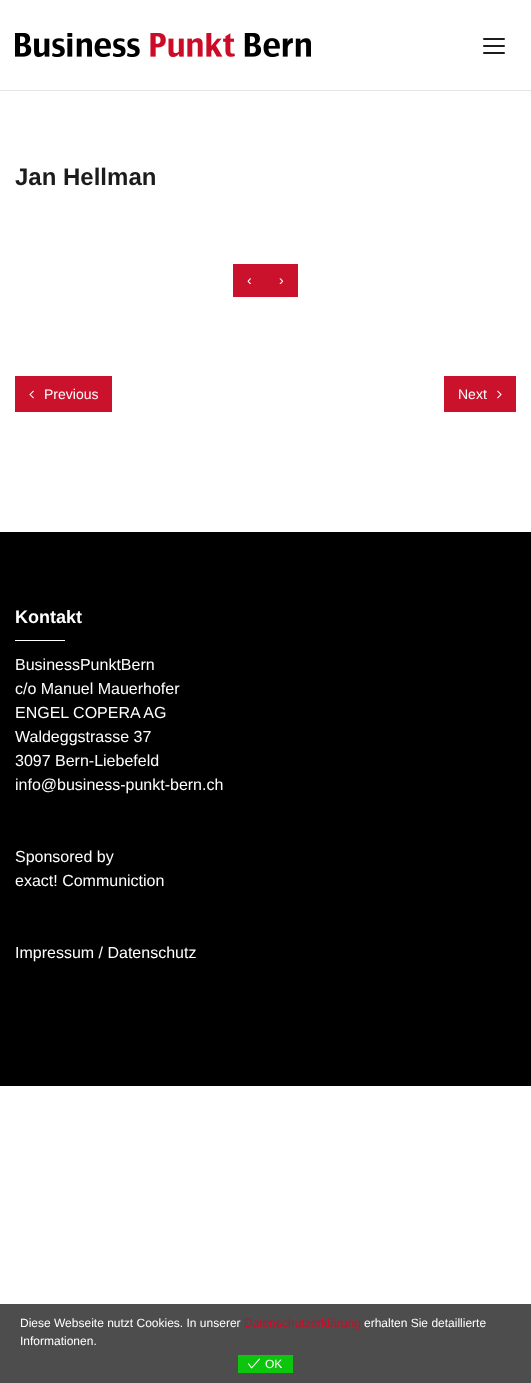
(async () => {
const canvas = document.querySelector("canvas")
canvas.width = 531
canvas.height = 1383
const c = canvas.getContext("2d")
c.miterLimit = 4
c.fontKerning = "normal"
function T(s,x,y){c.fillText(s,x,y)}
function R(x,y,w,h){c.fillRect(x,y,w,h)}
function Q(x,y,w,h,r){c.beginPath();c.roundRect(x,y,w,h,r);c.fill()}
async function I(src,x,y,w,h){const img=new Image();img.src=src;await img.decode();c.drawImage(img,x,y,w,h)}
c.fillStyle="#fff"
R(0,0,531,1383)
c.save()
c.beginPath()
c.rect(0,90,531,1)
c.clip()
c.fillStyle="#0000001a"
c.filter="blur(0.5px)"
c.beginPath()
c.rect(0,1,531,90)
c.fill()
c.filter="none"
c.restore()
await I("1.png",15,33,296,24)
c.fillStyle="#1c1c1c"
Q(483,38,22,2,1)
Q(483,45,22,2,1)
Q(483,52,22,2,1)
c.font="bold 24px Liberation Sans"
T("Jan Hellman",15,185)
c.fillStyle="#ca122d"
R(233,264,65,33)
c.font="14px Liberation Sans"
c.fillStyle="#fff"
T("‹",247,285)
T("›",279,285)
c.fillStyle="#ca122d"
R(15,376,97,36)
await I("2.png",29,390,5,9)
c.fillStyle="#fff"
T("Previous",44,399)
c.fillStyle="#ca122d"
R(444,376,72,36)
c.fillStyle="#fff"
T("Next",458,399)
await I("3.png",497,390,5,9)
c.fillStyle="#000"
R(0,532,531,554)
c.font="bold 18px Liberation Sans"
c.fillStyle="#fff"
T("Kontakt",15,623)
R(15,640,50,1)
c.font="16px Liberation Sans"
T("BusinessPunktBern",15,670)
T("c/o Manuel Mauerhofer",15,694)
T("ENGEL COPERA AG",15,718)
T("Waldeggstrasse 37",15,742)
T("3097 Bern-Liebefeld",15,766)
T("info@business-punkt-bern.ch",15,790)
T("Sponsored by",15,862)
T("exact! Communiction",15,886)
T("Impressum / Datenschutz",15,958)
c.fillStyle="#4d4d4d"
R(0,1304,531,79)
c.font="12px Liberation Sans"
c.fillStyle="#fff"
T("Diese Webseite nutzt Cookies. In unserer",20,1327)
c.fillStyle="#cc0b27"
T("Datenschutzerklärung",244,1327)
c.fillStyle="#fff"
T("erhalten Sie detaillierte",364,1327)
T("Informationen.",20,1345)
c.fillStyle="#0ec50e"
R(238,1355,55,18)
await I("4.png",248,1358,12,11)
c.fillStyle="#fff"
T("OK",265,1368)
})()
